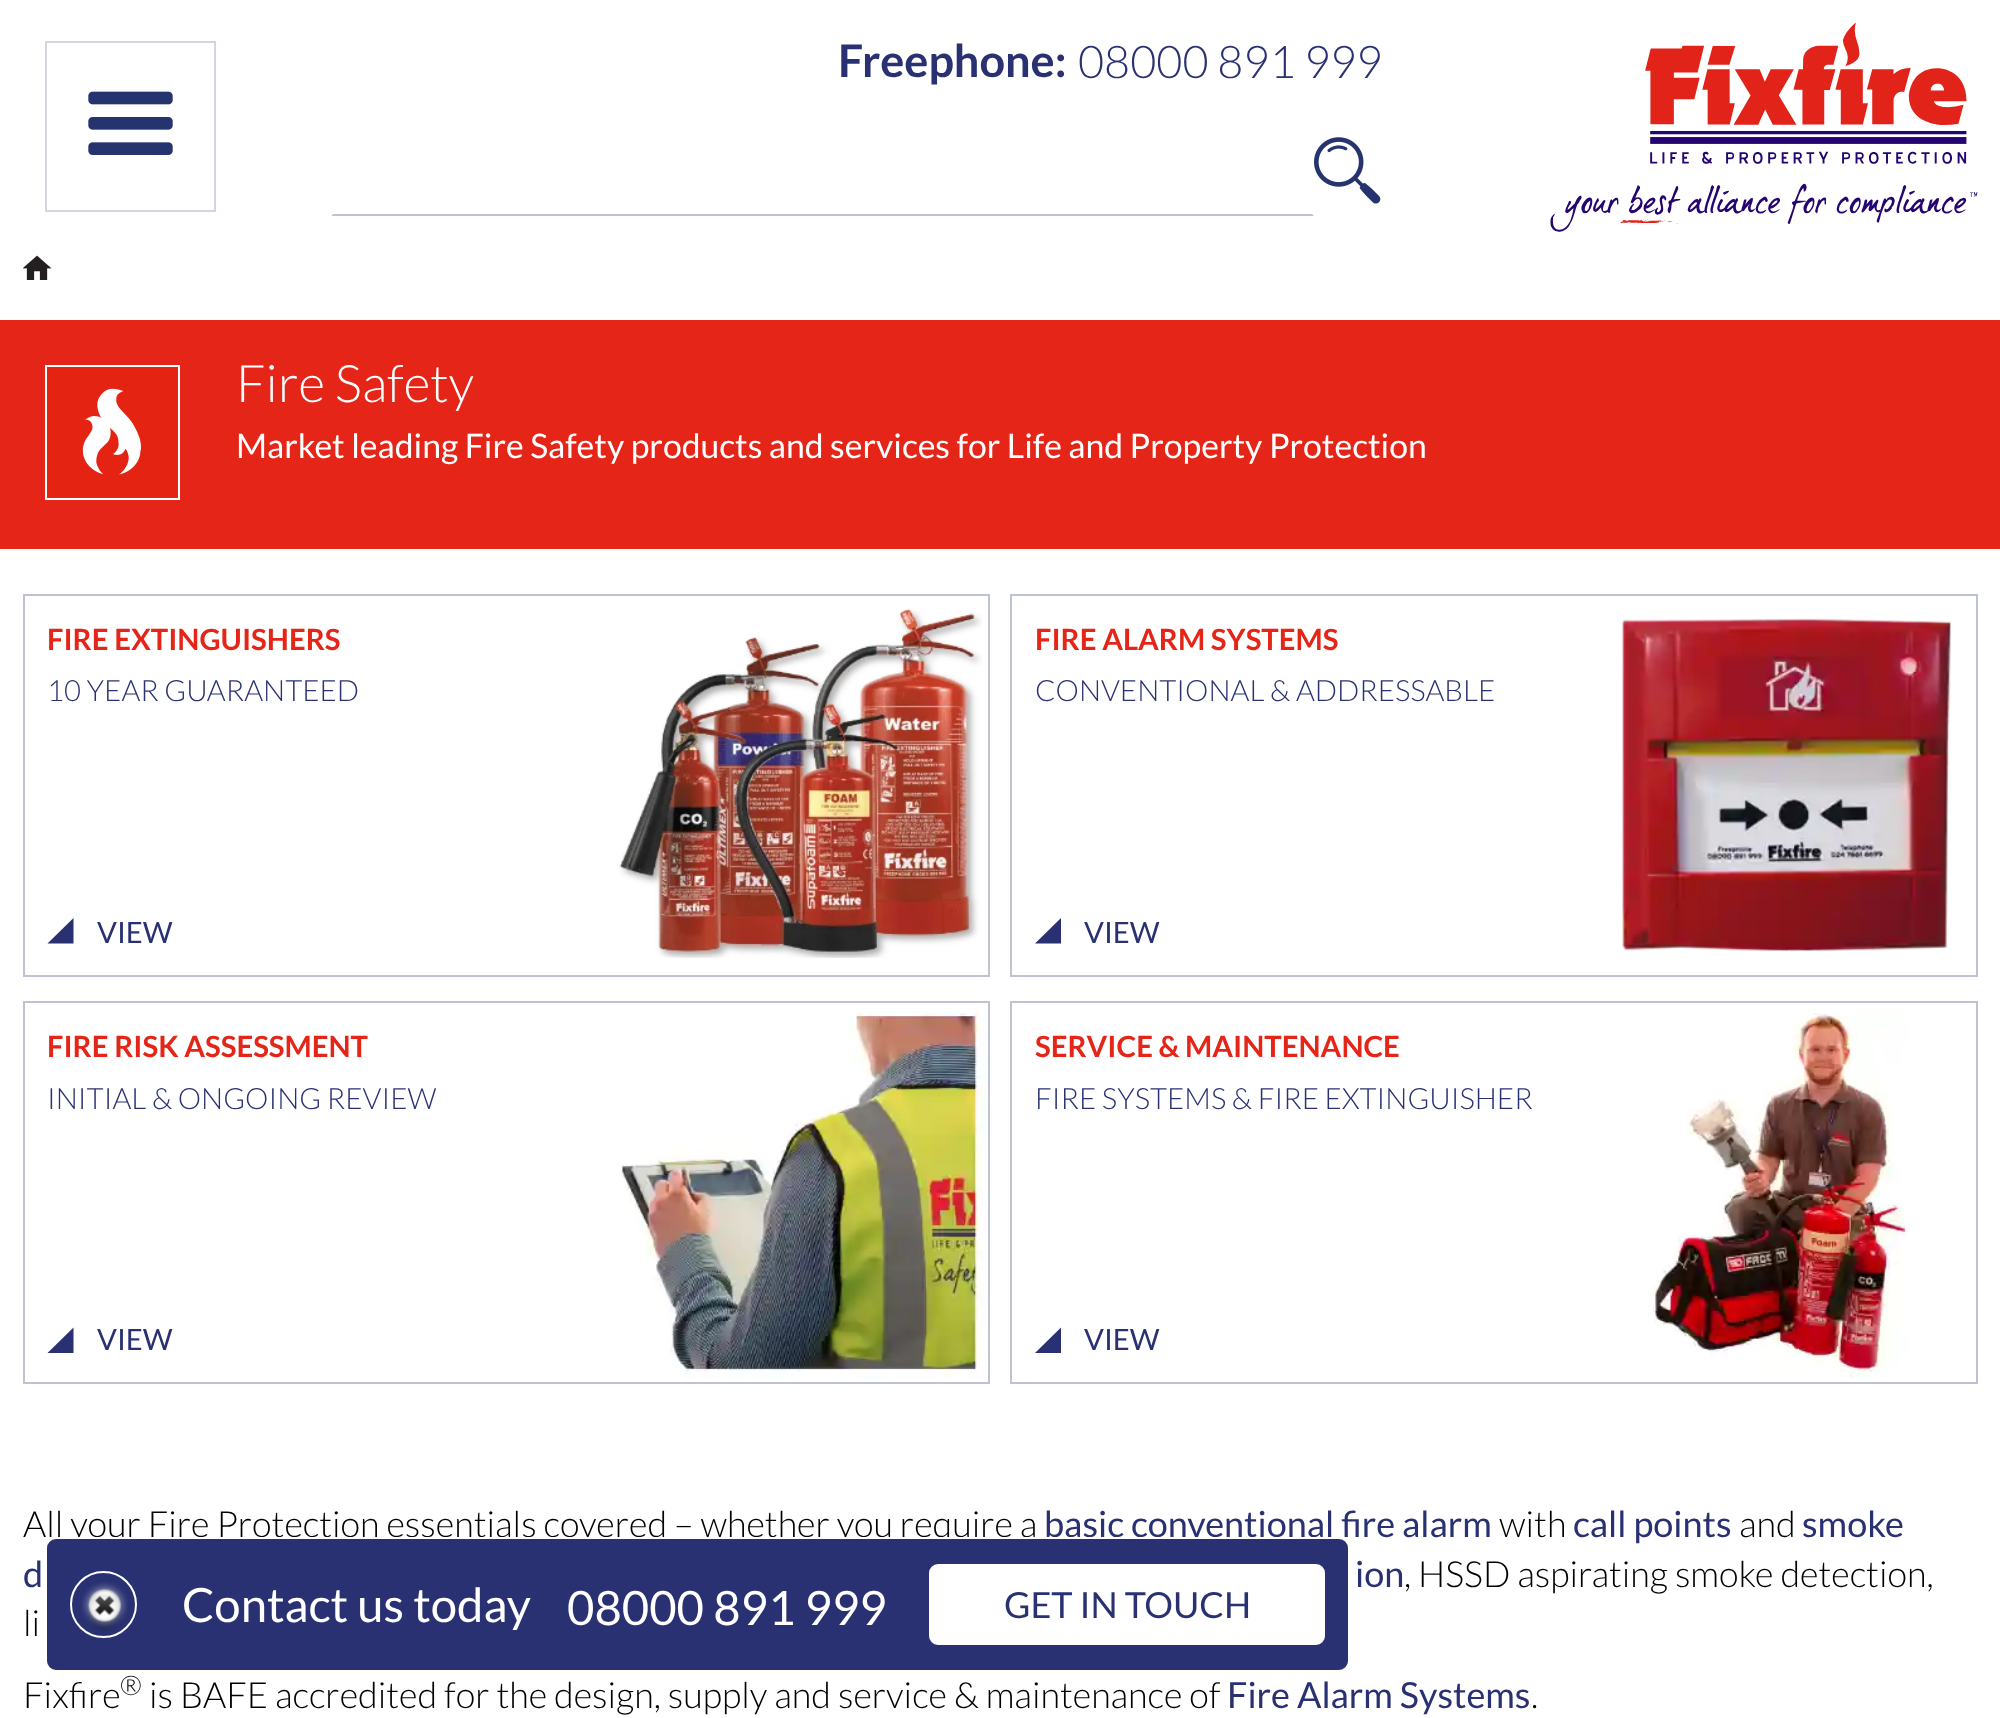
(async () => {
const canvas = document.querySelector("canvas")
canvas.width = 2000
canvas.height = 1718
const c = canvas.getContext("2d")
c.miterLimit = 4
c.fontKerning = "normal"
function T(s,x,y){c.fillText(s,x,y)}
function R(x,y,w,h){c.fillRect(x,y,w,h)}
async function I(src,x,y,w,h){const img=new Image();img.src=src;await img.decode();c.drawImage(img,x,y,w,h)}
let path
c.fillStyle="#fff"
R(0,0,2000,1718)
c.strokeStyle="#d3d6e2"
c.lineWidth=2
c.strokeRect(46,42,169,169)
await I("1.png",88,91,85,64)
c.font="bold 45px Lato"
c.fillStyle="#293172"
T("Freephone:",838,77)
c.font="300 45px Lato"
T("08000 891 999",1078,78)
c.fillStyle="#bec2d4"
path = new Path2D("M1314 216h-983l2-2h979z")
c.fill(path)
c.fillStyle="#fff"
path = new Path2D("M331 216v-90l2 2v86z")
c.fill(path)
await I("2.png",1314,137,67,67)
await I("3.png",1550,23,428,209)
await I("4.png",23,255,29,25)
c.fillStyle="#e42518"
R(0,320,2000,229)
c.strokeStyle="#fff"
c.strokeRect(46,366,133,133)
await I("5.png",47,367,130,130)
c.font="300 51.75px Lato"
c.fillStyle="#fff"
T("Fire Safety",236,402)
c.font="33.75px Lato"
T("Market leading Fire Safety products and services for Life and Property Protection",236,458)
c.strokeStyle="#bfc1d5"
c.strokeRect(24,595,965,381)
c.font="bold 29.25px Lato"
c.fillStyle="#e42518"
T("FIRE EXTINGUISHERS",47,650)
c.font="300 29.25px Lato"
c.fillStyle="#293172"
T("10 YEAR GUARANTEED",47,701)
path = new Path2D("M73.5 918v25.5h-26z")
c.fill(path,"evenodd")
c.font="29.25px Lato"
T("VIEW",97,943)
await I("6.png",619,608,364,350)
c.strokeRect(1011,595,966,381)
c.font="bold 29.25px Lato"
c.fillStyle="#e42518"
T("FIRE ALARM SYSTEMS",1035,650)
c.font="300 29.25px Lato"
c.fillStyle="#293172"
T("CONVENTIONAL & ADDRESSABLE",1035,701)
path = new Path2D("M1061 918v25.5h-26z")
c.fill(path,"evenodd")
c.font="29.25px Lato"
T("VIEW",1084,943)
await I("7.png",1622,618,329,334)
c.strokeRect(24,1002,965,381)
c.font="bold 29.25px Lato"
c.fillStyle="#e42518"
T("FIRE RISK ASSESSMENT",47,1057)
c.font="300 29.25px Lato"
c.fillStyle="#293172"
T("INITIAL & ONGOING REVIEW",47,1109)
path = new Path2D("M73.5 1327.5v25.5h-26z")
c.fill(path,"evenodd")
c.font="29.25px Lato"
T("VIEW",97,1350)
await I("8.png",620,1011,368,370)
c.strokeRect(1011,1002,966,381)
c.font="bold 29.25px Lato"
c.fillStyle="#e42518"
T("SERVICE & MAINTENANCE",1035,1057)
c.font="300 29.25px Lato"
c.fillStyle="#293172"
T("FIRE SYSTEMS & FIRE EXTINGUISHER",1035,1109)
path = new Path2D("M1061 1327.5v25.5h-26z")
c.fill(path,"evenodd")
c.font="29.25px Lato"
T("VIEW",1084,1350)
await I("9.png",1653,1013,257,365)
c.font="300 36px Lato"
c.fillStyle="#000"
T("All your Fire Protection essentials covered – whether you require a",23,1537)
c.font="36px Lato"
c.fillStyle="#293172"
T("basic conventional fire alarm",1044,1537)
c.font="300 36px Lato"
c.fillStyle="#000"
T("with",1499,1537)
c.font="36px Lato"
c.fillStyle="#293172"
T("call points",1573,1537)
c.font="300 36px Lato"
c.fillStyle="#000"
T("and",1739,1537)
c.font="36px Lato"
c.fillStyle="#293172"
T("smoke",1802,1537)
T("d",23,1587)
T("ion",1355,1587)
c.font="300 36px Lato"
c.fillStyle="#000"
T(", HSSD aspirating smoke detection,",1404,1587)
T("li",23,1636)
T("Fixfire",23,1708)
c.font="300 27px Lato"
T("®",120,1695)
c.font="300 36px Lato"
T("is BAFE accredited for the design, supply and service & maintenance of",149,1708)
c.font="36px Lato"
c.fillStyle="#293172"
T("Fire Alarm Systems",1227,1708)
c.font="300 36px Lato"
c.fillStyle="#000"
T(".",1531,1708)
c.fillStyle="#293172"
c.beginPath()
c.roundRect(46,1538,1303,133,10)
c.fill()
c.strokeStyle="#fff"
c.stroke()
await I("10.png",81,1582,47,50)
c.beginPath()
c.arc(103.5,1604.5,32.5,0,7)
c.stroke()
c.font="47.25px Lato"
c.fillStyle="#fff"
T("Contact us today",182,1622)
T("08000 891 999",567,1625)
c.beginPath()
c.roundRect(930,1565,394,79,8)
c.fill()
c.stroke()
c.font="36px Lato"
c.fillStyle="#293172"
T("GET IN TOUCH",1004,1618)
})()
